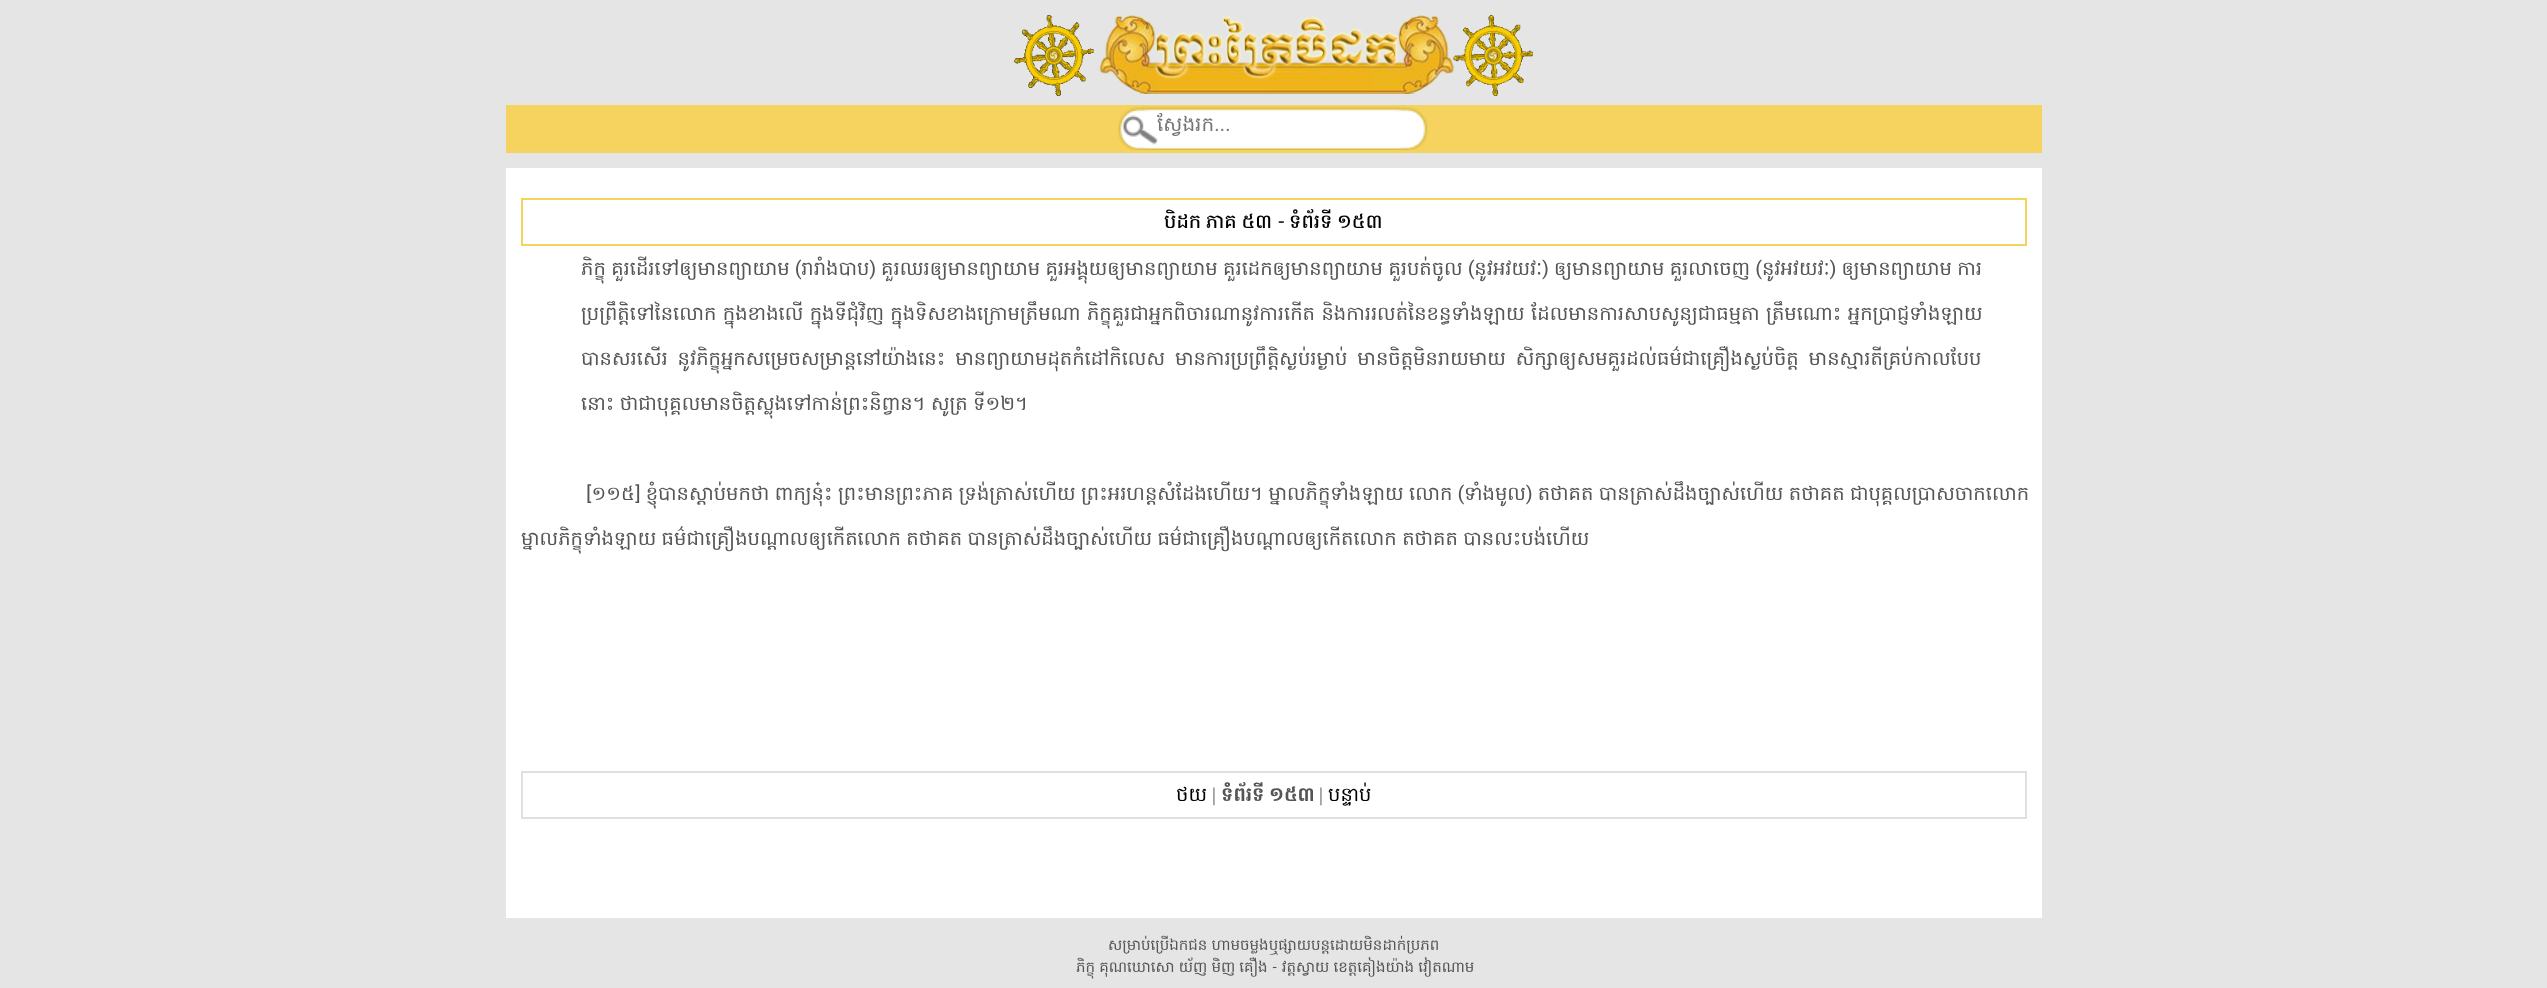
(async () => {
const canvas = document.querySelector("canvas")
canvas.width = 2547
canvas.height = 988
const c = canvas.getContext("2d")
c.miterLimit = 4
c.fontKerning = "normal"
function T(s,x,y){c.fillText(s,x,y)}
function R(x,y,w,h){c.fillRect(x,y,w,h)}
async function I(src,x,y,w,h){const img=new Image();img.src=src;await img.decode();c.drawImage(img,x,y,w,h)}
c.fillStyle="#e5e5e5"
R(0,0,2547,988)
await I("1.png",1014,15,80,81)
await I("2.png",1099,15,355,79)
await I("3.png",1453,15,80,81)
c.fillStyle="#f6d25e"
R(506,105,1536,48)
await I("4.png",1118,106,310,44)
c.save()
c.beginPath()
c.rect(1157,113,214,28)
c.clip()
c.font="20px Hanuman"
c.fillStyle="#757575"
T("ស្វែងរក",1157,131)
c.restore()
c.font="20px Liberation Sans"
c.fillStyle="#757575"
T("...",1214,131)
c.fillStyle="#fff"
R(506,168,1536,750)
c.strokeStyle="#f6d25e"
c.lineWidth=2
c.strokeRect(522,199,1504,46)
c.wordSpacing="-2px"
c.font="500 19.5px Hanuman"
c.fillStyle="#000"
T("បិដក ភាគ ៥៣",1164,228)
c.wordSpacing="0px"
c.font="500 19.5px Roboto"
c.fillStyle="#333"
T("-",1278,228)
c.wordSpacing="-2px"
c.font="500 19.5px Hanuman"
c.fillStyle="#000"
T("ទំព័រទី ១៥៣",1289,228)
c.wordSpacing="-1.25px"
c.font="19.5px Hanuman"
c.fillStyle="#555"
T("ភិក្ខុ គួរដើរទៅឲ្យមានព្យាយាម (រារាំងបាប) គួរឈរឲ្យមានព្យាយាម គួរអង្គុយឲ្យមានព្យាយាម គួរដេកឲ្យមានព្យាយាម គួរបត់ចូល (នូវអវយវៈ) ឲ្យមានព្យាយាម គួរលាចេញ (នូវអវយវៈ) ឲ្យមានព្យាយាម ការ",581,275)
c.wordSpacing="-0.25px"
T("ប្រព្រឹត្តិទៅនៃលោក ក្នុងខាងលើ ក្នុងទីជុំវិញ ក្នុងទិសខាងក្រោមត្រឹមណា ភិក្ខុគួរជាអ្នកពិចារណានូវការកើត និងការរលត់នៃខន្ធទាំងឡាយ ដែលមានការសាបសូន្យជាធម្មតា ត្រឹមណោះ អ្នកប្រាជ្ញទាំងឡាយ",581,320)
c.wordSpacing="3.25px"
T("បានសរសើរ នូវភិក្ខុអ្នកសម្រេចសម្រាន្តនៅយ៉ាងនេះ មានព្យាយាមដុតកំដៅកិលេស មានការប្រព្រឹត្តិស្ងប់រម្ងាប់ មានចិត្តមិនរាយមាយ សិក្សាឲ្យសមគួរដល់ធម៌ជាគ្រឿងស្ងប់ចិត្ត មានស្មារតីគ្រប់កាលបែប",581,365)
c.wordSpacing="-1.25px"
T("នោះ ថាជាបុគ្គលមានចិត្តស្លុងទៅកាន់ព្រះនិព្វាន។ សូត្រ ទី១២។",581,410)
T("[១១៥] ខ្ញុំបានស្តាប់មកថា ពាក្យនុ៎ះ ព្រះមានព្រះភាគ ទ្រង់ត្រាស់ហើយ ព្រះអរហន្តសំដែងហើយ។ ម្នាលភិក្ខុទាំងឡាយ លោក (ទាំងមូល) តថាគត បានត្រាស់ដឹងច្បាស់ហើយ តថាគត ជាបុគ្គលប្រាសចាកលោក",586,500)
T("ម្នាលភិក្ខុទាំងឡាយ ធម៌ជាគ្រឿងបណ្តាលឲ្យកើតលោក តថាគត បានត្រាស់ដឹងច្បាស់ហើយ ធម៌ជាគ្រឿងបណ្តាលឲ្យកើតលោក តថាគត បានលះបង់ហើយ",521,545)
c.strokeStyle="#e0e0e0"
c.strokeRect(522,772,1504,46)
c.wordSpacing="0px"
c.fillStyle="#000"
T("ថយ",1176,801)
c.font="19.5px Liberation Serif"
c.fillStyle="#555"
T("|",1212,801)
c.wordSpacing="-2px"
c.font="bold 19.5px Hanuman"
T("ទំព័រទី ១៥៣",1221,801)
c.wordSpacing="0px"
c.font="19.5px Hanuman"
c.fillStyle="#000"
T("បន្ទាប់",1328,801)
c.font="19.5px Liberation Serif"
c.fillStyle="#555"
T("|",1319,801)
c.wordSpacing="-1px"
c.font="15px Hanuman"
T("សម្រាប់ប្រើឯកជន ហាមចម្លងឬផ្សាយបន្តដោយមិនដាក់ប្រភព",1108,950)
T("ភិក្ខុ គុណឃោសោ យ័ញ មិញ គឿង - វត្តស្វាយ ខេត្តគៀងយ៉ាង វៀតណាម",1076,972)
})()
